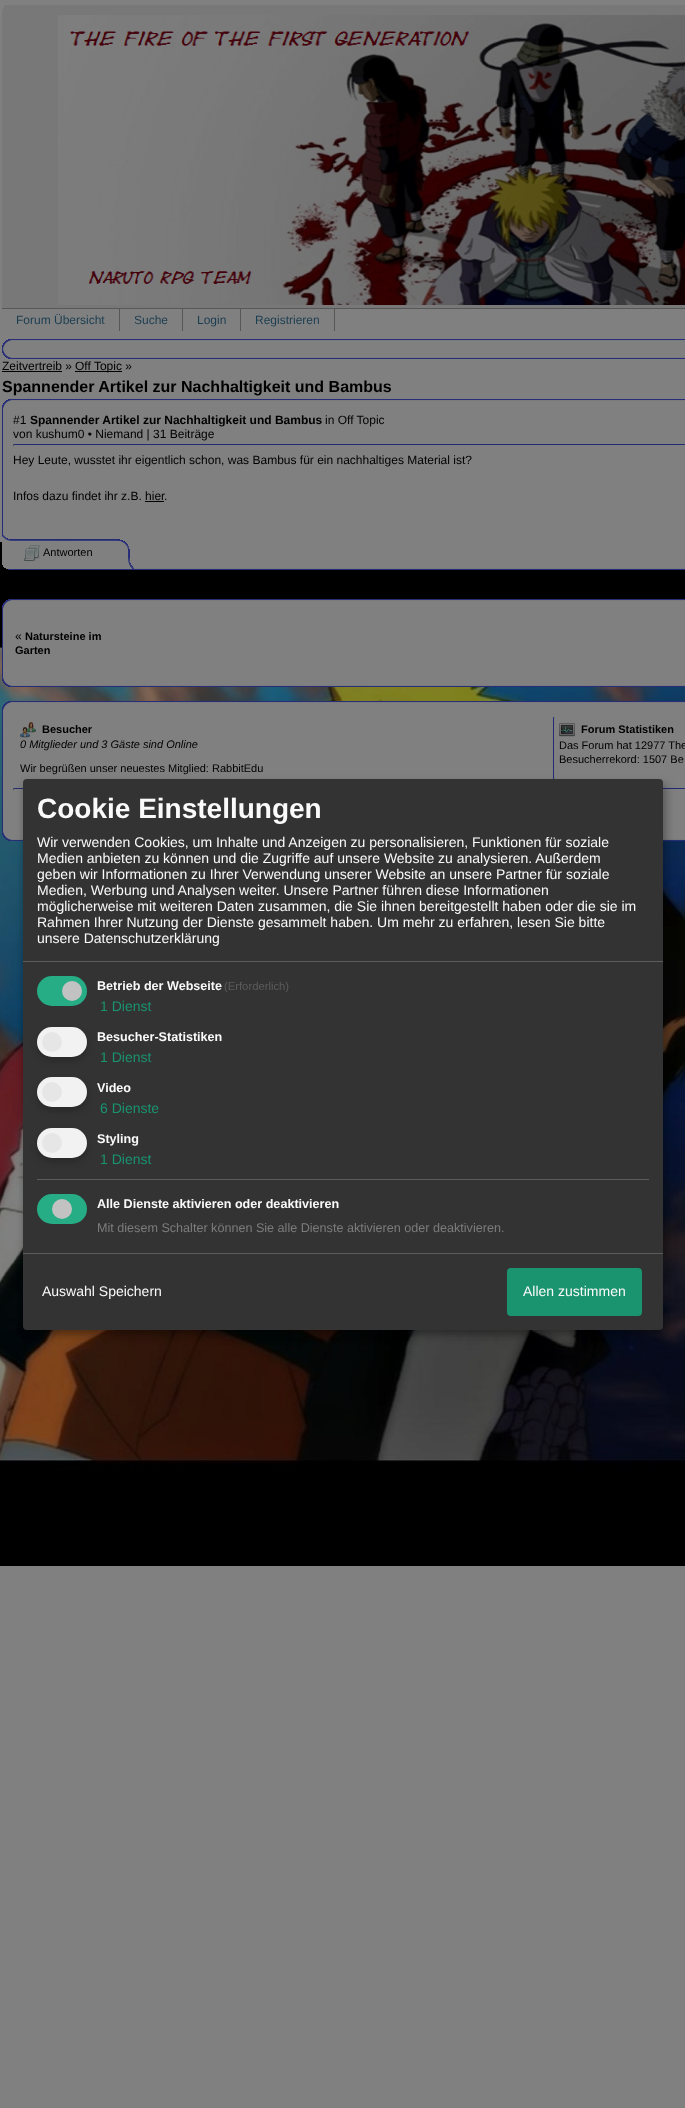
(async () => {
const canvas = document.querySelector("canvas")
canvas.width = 685
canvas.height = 2108
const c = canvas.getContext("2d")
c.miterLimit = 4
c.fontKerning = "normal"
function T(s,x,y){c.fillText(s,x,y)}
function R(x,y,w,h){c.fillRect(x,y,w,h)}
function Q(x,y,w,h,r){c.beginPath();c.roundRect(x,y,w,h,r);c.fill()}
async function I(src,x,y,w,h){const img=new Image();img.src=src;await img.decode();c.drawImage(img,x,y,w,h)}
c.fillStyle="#808080"
R(0,0,685,2108)
await I("1.png",0,542,685,1024)
await I("2.png",2,5,683,10)
c.fillStyle="#787878"
R(2,15,683,293)
await I("3.png",58,15,627,290)
c.fillStyle="#575757"
R(2,308,683,1)
R(119,309,1,22)
c.font="12px Liberation Sans"
c.fillStyle="#1b3d51"
T("Forum Übersicht",16,324)
c.fillStyle="#575757"
R(182,309,1,22)
c.fillStyle="#1b3d51"
T("Suche",134,324)
c.fillStyle="#575757"
R(240,309,1,22)
c.fillStyle="#1b3d51"
T("Login",197,324)
c.fillStyle="#575757"
R(334,309,1,22)
c.fillStyle="#1b3d51"
T("Registrieren",255,324)
await I("4.png",2,339,683,9)
c.fillStyle="#252c77"
R(2,348,1,2)
await I("5.png",2,349,683,10)
c.fillStyle="#000"
T("Zeitvertreib »",2,370)
R(2,371,60,1)
R(75,371,47,1)
T("Off Topic »",75,370)
c.font="bold 16px Liberation Sans"
T("Spannender Artikel zur Nachhaltigkeit und Bambus",2,392)
await I("4.png",2,399,683,9)
c.fillStyle="#808080"
R(3,542,682,18)
c.fillStyle="#252c77"
R(2,408,1,127)
c.font="12px Liberation Sans"
c.fillStyle="#000"
T("#1",13,424)
c.font="bold 12px Liberation Sans"
T("Spannender Artikel zur Nachhaltigkeit und Bambus",30,424)
c.font="12px Liberation Sans"
T("in Off Topic",325,424)
T("von kushum0 • Niemand | 31 Beiträge",13,438)
c.fillStyle="#232b74"
R(13,444,672,1)
c.fillStyle="#505050"
R(13,444,1,2)
c.fillStyle="#000"
T("Hey Leute, wusstet ihr eigentlich schon, was Bambus für ein nachhaltiges Material ist?",13,464)
T("Infos dazu findet ihr z.B. hier",13,500)
T(".",164,500)
R(145,501,19,1)
await I("8.png",8,560,677,10)
await I("6.png",2,535,132,34)
await I("7.png",24,545,16,16)
c.font="11px Liberation Sans"
T("Antworten",43,556)
await I("9.png",2,599,683,9)
c.fillStyle="#808080"
R(3,608,682,69)
c.fillStyle="#252c77"
R(2,608,1,70)
c.font="12px Liberation Sans"
c.fillStyle="#000"
T("«",15,640)
c.font="bold 11px Liberation Sans"
T("Natursteine im",25,640)
T("Garten",15,654)
await I("10.png",2,677,683,10)
await I("11.png",2,701,683,9)
c.fillStyle="#808080"
R(3,710,682,121)
c.fillStyle="#252c77"
R(2,710,1,122)
await I("12.png",20,722,16,16)
c.fillStyle="#000"
T("Besucher",42,733)
c.font="italic 11px Liberation Sans"
T("0 Mitglieder und 3 Gäste sind Online",20,748)
c.font="11px Liberation Sans"
T("Wir begrüßen unser neuestes Mitglied: RabbitEdu",20,772)
c.fillStyle="#232b74"
R(553,717,1,62)
await I("13.png",559,723,16,14)
c.font="bold 11px Liberation Sans"
c.fillStyle="#000"
T("Forum Statistiken",581,733)
c.font="11px Liberation Sans"
T("Das Forum hat 12977 The",559,749)
T("Besucherrekord: 1507 Be",559,763)
c.fillStyle="#232b74"
R(13,788,672,1)
c.fillStyle="#505050"
R(13,788,1,2)
await I("14.png",2,831,683,10)
c.fillStyle="#00000030"
c.filter="blur(5px)"
c.beginPath()
c.roundRect(28,784,640,551,4)
c.fill()
c.filter="none"
c.fillStyle="#00000033"
c.filter="blur(3px)"
c.beginPath()
c.roundRect(23,783,640,551,4)
c.fill()
c.filter="none"
c.fillStyle="#333"
Q(23,779,640,551,4)
c.fillStyle="#5c5c5c"
R(23,961,640,1)
c.font="bold 28px Liberation Sans"
c.fillStyle="#fafafa"
T("Cookie Einstellungen",37,818)
c.font="14px Liberation Sans"
T("Wir verwenden Cookies, um Inhalte und Anzeigen zu personalisieren, Funktionen für soziale",37,847)
T("Medien anbieten zu können und die Zugriffe auf unsere Website zu analysieren. Außerdem",37,863)
T("geben wir Informationen zu Ihrer Verwendung unserer Website an unsere Partner für soziale",37,879)
T("Medien, Werbung und Analysen weiter. Unsere Partner führen diese Informationen",37,895)
T("möglicherweise mit weiteren Daten zusammen, die Sie ihnen bereitgestellt haben oder die sie im",37,911)
T("Rahmen Ihrer Nutzung der Dienste gesammelt haben. Um mehr zu erfahren, lesen Sie bitte",37,927)
T("unsere Datenschutzerklärung",37,943)
c.fillStyle="#27ad85"
Q(37,976,50,30,15)
c.fillStyle="#c2c2c2"
c.beginPath()
c.arc(72,991,10,0,7)
c.fill()
c.font="bold 12.6px Liberation Sans"
c.fillStyle="#fafafa"
T("Betrieb der Webseite",97,990)
c.font="11.25px Liberation Sans"
c.fillStyle="#5c5c5c"
T("(Erforderlich)",224,990)
c.font="14px Liberation Sans"
c.fillStyle="#1a936f"
T("1 Dienst",100,1011)
c.fillStyle="#00000033"
c.filter="blur(3px)"
c.beginPath()
c.roundRect(37,1031,50,30,15)
c.fill()
c.filter="none"
c.fillStyle="#f2f2f2"
Q(37,1027,50,30,15)
c.fillStyle="#e6e6e6"
c.beginPath()
c.arc(52,1042,10,0,7)
c.fill()
c.font="bold 12.6px Liberation Sans"
c.fillStyle="#fafafa"
T("Besucher-Statistiken",97,1041)
c.font="14px Liberation Sans"
c.fillStyle="#1a936f"
T("1 Dienst",100,1062)
c.fillStyle="#00000033"
c.filter="blur(3px)"
c.beginPath()
c.roundRect(37,1081,50,30,15)
c.fill()
c.filter="none"
c.fillStyle="#f2f2f2"
Q(37,1077,50,30,15)
c.fillStyle="#e6e6e6"
c.beginPath()
c.arc(52,1092,10,0,7)
c.fill()
c.font="bold 12.6px Liberation Sans"
c.fillStyle="#fafafa"
T("Video",97,1092)
c.font="14px Liberation Sans"
c.fillStyle="#1a936f"
T("6 Dienste",100,1113)
c.fillStyle="#00000033"
c.filter="blur(3px)"
c.beginPath()
c.roundRect(37,1132,50,30,15)
c.fill()
c.filter="none"
c.fillStyle="#f2f2f2"
Q(37,1128,50,30,15)
c.fillStyle="#e6e6e6"
c.beginPath()
c.arc(52,1143,10,0,7)
c.fill()
c.font="bold 12.6px Liberation Sans"
c.fillStyle="#fafafa"
T("Styling",97,1143)
c.font="14px Liberation Sans"
c.fillStyle="#1a936f"
T("1 Dienst",100,1164)
c.fillStyle="#5c5c5c"
R(37,1179,612,1)
c.fillStyle="#27ad85"
Q(37,1194,50,30,15)
c.fillStyle="#c2c2c2"
c.beginPath()
c.arc(62,1209,10,0,7)
c.fill()
c.font="bold 12.6px Liberation Sans"
c.fillStyle="#fafafa"
T("Alle Dienste aktivieren oder deaktivieren",97,1208)
c.font="12.6px Liberation Sans"
c.fillStyle="#7c7c7c"
T("Mit diesem Schalter können Sie alle Dienste aktivieren oder deaktivieren.",97,1232)
c.fillStyle="#5c5c5c"
R(23,1253,640,1)
c.font="14px Liberation Sans"
c.fillStyle="#fafafa"
T("Auswahl Speichern",42,1296)
c.fillStyle="#1a936f"
Q(507,1268,135,48,4)
c.fillStyle="#fafafa"
T("Allen zustimmen",523,1296)
})()
